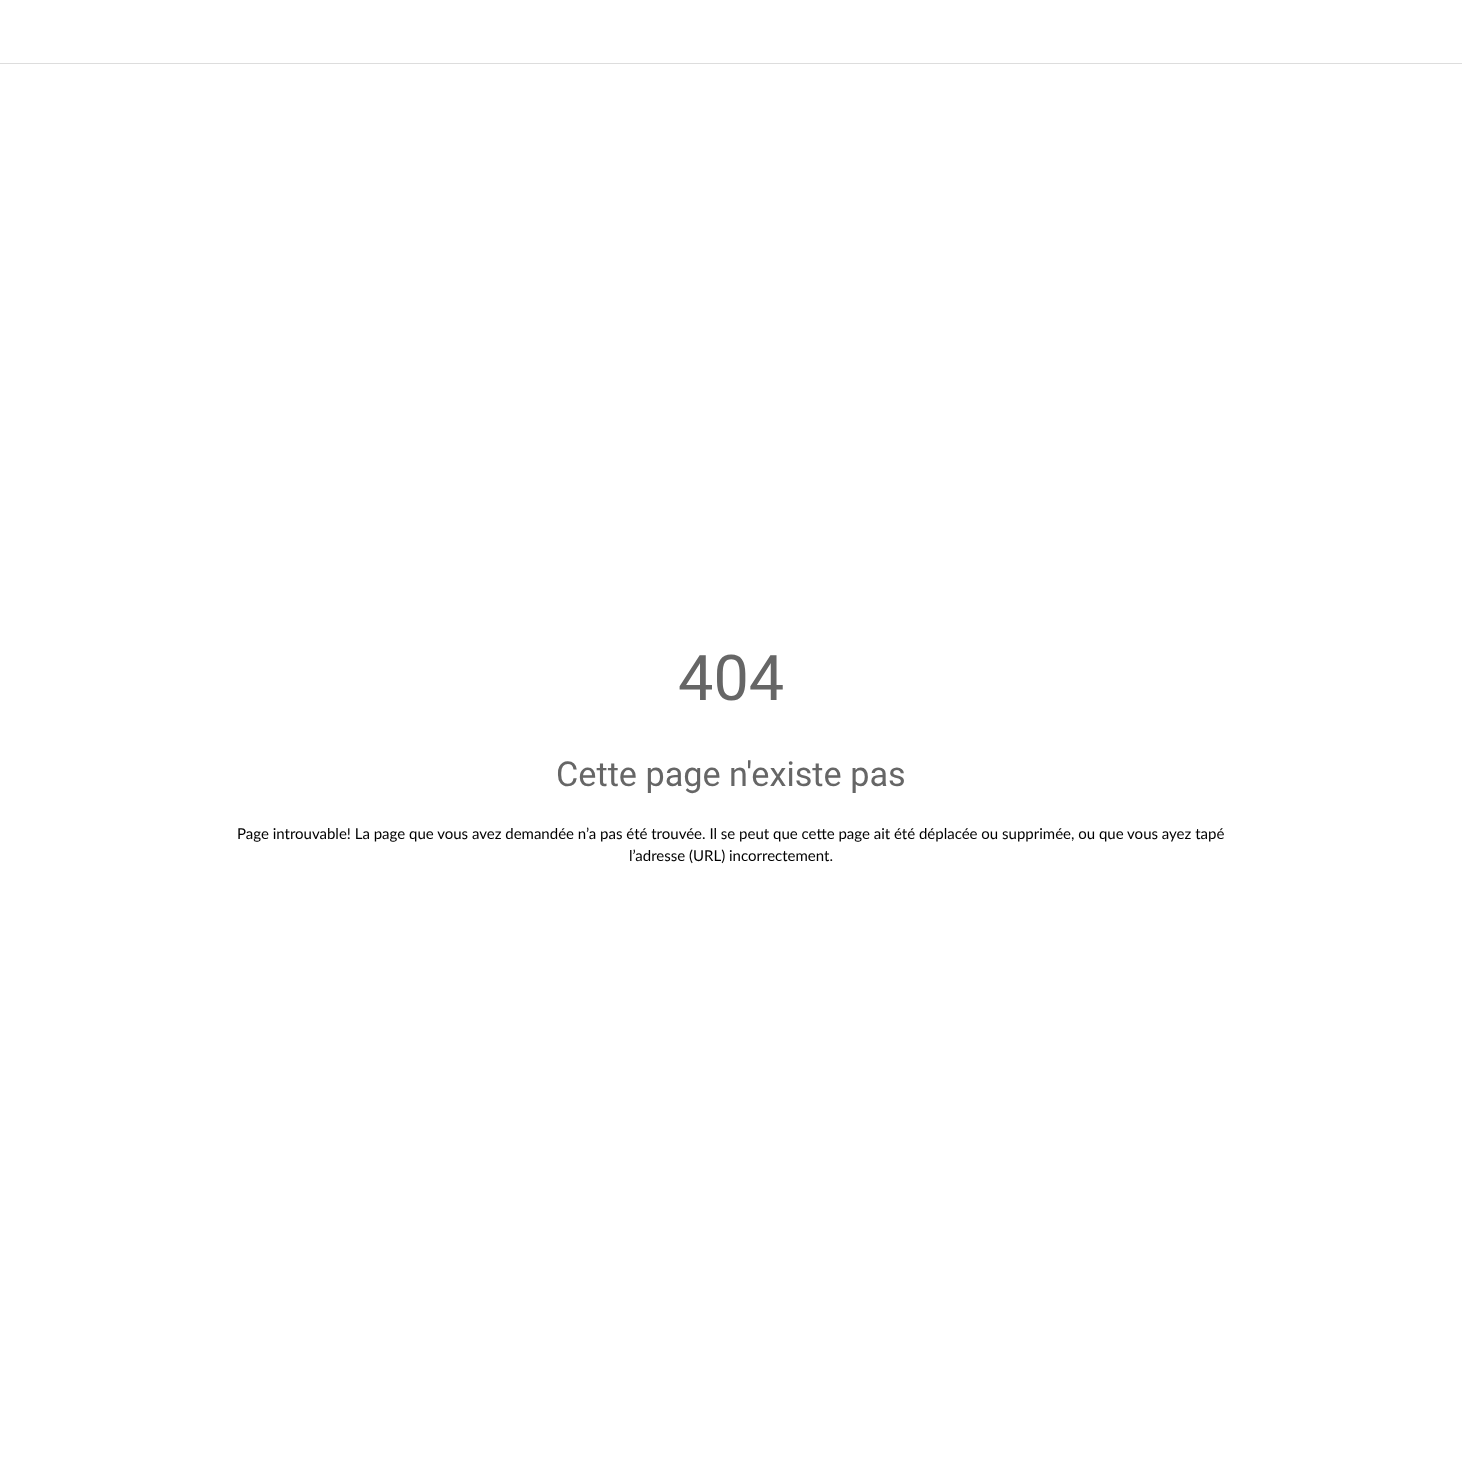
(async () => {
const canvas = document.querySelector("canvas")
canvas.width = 1462
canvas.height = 1462
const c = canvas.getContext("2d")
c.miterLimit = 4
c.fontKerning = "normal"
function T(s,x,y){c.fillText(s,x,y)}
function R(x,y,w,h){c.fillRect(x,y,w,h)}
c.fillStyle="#fff"
R(0,0,1462,1462)
c.fillStyle="#ddd"
R(0,63,1462,1)
c.font="63px Roboto"
c.fillStyle="#666"
T("404",678,700)
c.font="34.25px Roboto"
T("Cette page n'existe pas",556,786)
c.font="15px Lato"
c.fillStyle="#000"
T("Page introuvable! La page que vous avez demandée n’a pas été trouvée. Il se peut que cette page ait été déplacée ou supprimée, ou que vous ayez tapé",237,839)
T("l’adresse (URL) incorrectement.",629,861)
})()
